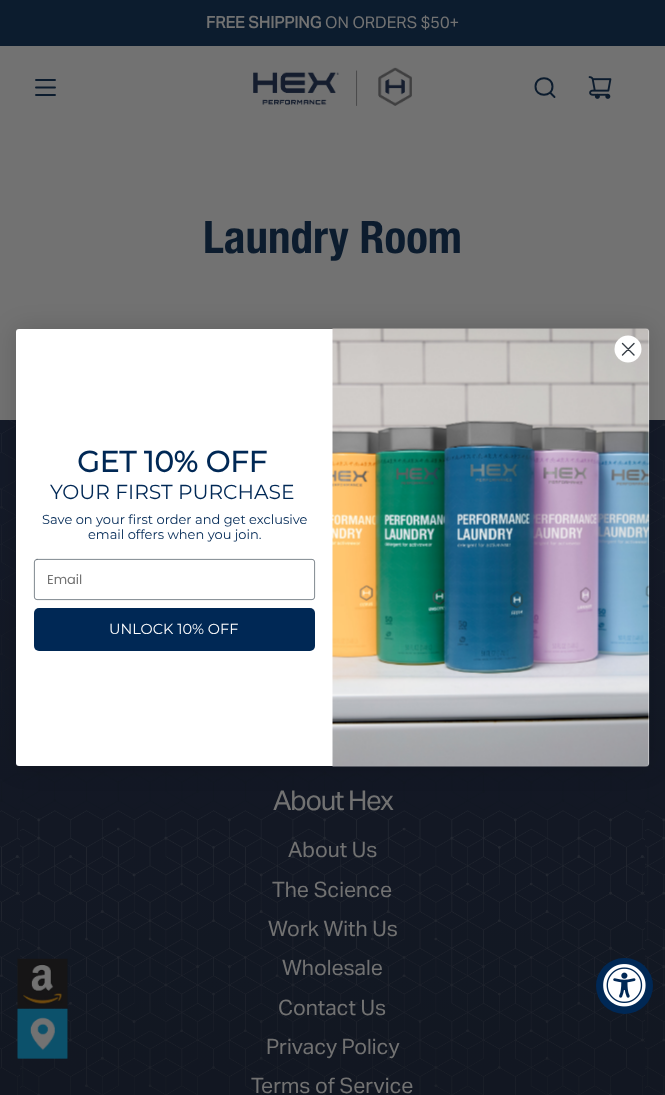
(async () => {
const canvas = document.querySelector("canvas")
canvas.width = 665
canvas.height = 1095
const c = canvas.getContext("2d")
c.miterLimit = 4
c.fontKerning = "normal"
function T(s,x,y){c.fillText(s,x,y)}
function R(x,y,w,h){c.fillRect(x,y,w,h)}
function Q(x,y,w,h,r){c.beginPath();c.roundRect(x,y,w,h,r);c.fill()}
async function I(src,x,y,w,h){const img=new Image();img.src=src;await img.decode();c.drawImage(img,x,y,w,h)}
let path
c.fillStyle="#727272"
R(0,0,665,1095)
await I("6.png",0,420,665,675)
c.fillStyle="#00000026"
c.filter="blur(12px)"
c.beginPath()
c.roundRect(16,329,633,437,3)
c.fill()
c.filter="none"
c.fillStyle="#fff"
Q(16,329,633,437,3)
await I("1.png",332,328,318,439)
c.beginPath()
c.arc(628,349,13.5,0,7)
c.fill()
path = new Path2D("M622.5 343.5l11.5 11.5m-11.5 0l11.5-11.5z")
c.strokeStyle="#373f47"
c.lineWidth=1.4
c.lineCap="round"
c.lineJoin="round"
c.stroke(path)
c.font="bold 29.25px Montserrat"
c.fillStyle="#002855"
T("GET 10% OFF",77,472)
c.font="100 20.25px Montserrat"
T("YOUR FIRST PURCHASE",50,499)
c.font="100 13px Montserrat"
T("Save on your first order and get exclusive",42,524)
T("email offers when you join.",88,539)
c.beginPath()
c.roundRect(34.4,559.4,280.2,40.2,2.6)
c.strokeStyle="#606a72"
c.lineWidth=0.8
c.lineJoin="miter"
c.stroke()
c.font="13px Poppins"
c.fillStyle="#727272"
T("Email",47,584)
c.fillStyle="#002855"
Q(34,608,281,43,5)
c.font="100 14.5px Montserrat"
c.fillStyle="#fff"
T("UNLOCK 10% OFF",109,634)
c.fillStyle="#0c1c2e"
R(0,0,665,46)
c.font="bold 16.25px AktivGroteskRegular"
c.fillStyle="#727272"
T("FREE SHIPPING",206,28)
c.font="16.25px AktivGroteskRegular"
T("ON ORDERS $50+",325,28)
path = new Path2D("M36 80h19m-19 7.5h19m-19 7.5h19")
c.strokeStyle="#0c1c2e"
c.lineWidth=1.9
c.lineJoin="round"
c.stroke(path)
await I("2.png",253,67,159,39)
path = new Path2D("M550 92.5l4.5 4.5m-19-10.5c0 11 17 11 17 0c0-11-17-11-17 0z")
c.stroke(path)
await I("3.png",588,76,24,23)
c.font="bold 45px Helvetica Neue"
c.fillStyle="#0c1c2e"
T("Laundry Room",203,253)
await I("4.png",17,958,51,51)
await I("5.png",17,1008,51,51)
c.letterSpacing="-1.25px"
c.font="27.5px AktivGroteskRegular"
c.fillStyle="#727272"
T("About Hex",273,810)
c.letterSpacing="0px"
c.font="21.25px AktivGroteskRegular"
T("About Us",288,857)
T("The Science",272,897)
T("Work With Us",268,936)
T("Wholesale",282,975)
T("Contact Us",278,1015)
T("Privacy Policy",266,1054)
T("Terms of Service",251,1093)
c.fillStyle="#002855"
Q(596,958,57,56,28)
await I("7.png",603,964,43,43)
})()
